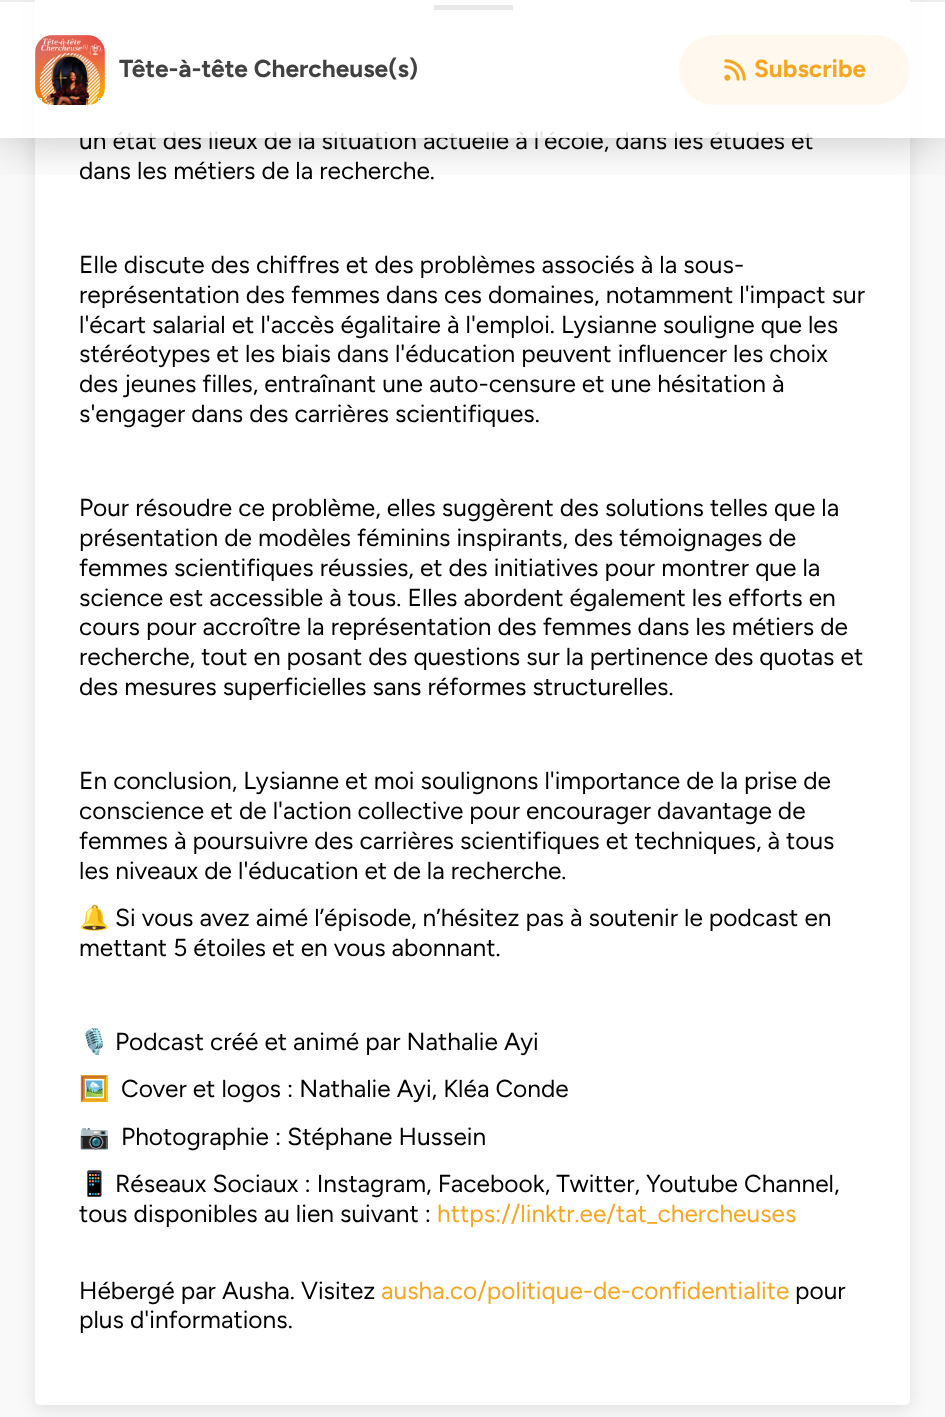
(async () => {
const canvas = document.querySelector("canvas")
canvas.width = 945
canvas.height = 1417
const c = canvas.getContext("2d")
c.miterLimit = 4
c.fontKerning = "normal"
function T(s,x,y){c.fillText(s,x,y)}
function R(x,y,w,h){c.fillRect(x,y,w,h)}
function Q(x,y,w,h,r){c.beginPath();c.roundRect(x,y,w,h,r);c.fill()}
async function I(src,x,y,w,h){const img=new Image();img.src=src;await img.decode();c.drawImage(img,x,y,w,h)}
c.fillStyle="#fff"
R(0,0,945,1417)
await I("1.png",0,0,945,2)
c.fillStyle="#00000080"
c.filter="blur(35px)"
c.beginPath()
c.rect(-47,-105,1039,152)
c.fill()
c.filter="none"
c.fillStyle="#f9f9f9"
R(0,2,945,1415)
c.fillStyle="#0000001a"
c.filter="blur(9px)"
c.beginPath()
c.roundRect(35,-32,875,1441,5)
c.fill()
c.filter="none"
c.fillStyle="#fff"
Q(35,-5,875,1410,5)
c.fillStyle="#414141"
R(434,5,79,5)
c.save()
c.beginPath()
c.rect(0,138,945,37)
c.clip()
c.fillStyle="#00000040"
c.filter="blur(26px)"
c.beginPath()
c.rect(0,0,945,138)
c.fill()
c.filter="none"
c.restore()
c.font="24.5px Figtree"
c.fillStyle="#000"
T("un état des lieux de la situation actuelle à l'école, dans les études et",79,149)
c.fillStyle="#ffffffe0"
R(0,0,945,138)
await I("2.png",35,35,70,70)
c.font="bold 24.5px Figtree"
c.fillStyle="#414141"
T("Tête-à-tête Chercheuse(s)",119,77)
c.fillStyle="#f5a62314"
Q(679,35,231,70,35)
await I("3.png",724,59,22,22)
c.fillStyle="#f5a623"
T("Subscribe",754,77)
c.font="24.5px Figtree"
c.fillStyle="#000"
T("dans les métiers de la recherche.",79,179)
T("Elle discute des chiffres et des problèmes associés à la sous-",79,273)
T("représentation des femmes dans ces domaines, notamment l'impact sur",79,303)
T("l'écart salarial et l'accès égalitaire à l'emploi. Lysianne souligne que les",79,333)
T("stéréotypes et les biais dans l'éducation peuvent influencer les choix",79,362)
T("des jeunes filles, entraînant une auto-censure et une hésitation à",79,392)
T("s'engager dans des carrières scientifiques.",79,422)
T("Pour résoudre ce problème, elles suggèrent des solutions telles que la",79,516)
T("présentation de modèles féminins inspirants, des témoignages de",79,546)
T("femmes scientifiques réussies, et des initiatives pour montrer que la",79,576)
T("science est accessible à tous. Elles abordent également les efforts en",79,606)
T("cours pour accroître la représentation des femmes dans les métiers de",79,635)
T("recherche, tout en posant des questions sur la pertinence des quotas et",79,665)
T("des mesures superficielles sans réformes structurelles.",79,695)
T("En conclusion, Lysianne et moi soulignons l'importance de la prise de",79,789)
T("conscience et de l'action collective pour encourager davantage de",79,819)
T("femmes à poursuivre des carrières scientifiques et techniques, à tous",79,849)
T("les niveaux de l'éducation et de la recherche.",79,879)
c.font="24.5px Noto Color Emoji"
T("🔔",79,926)
c.font="24.5px Figtree"
T("Si vous avez aimé l’épisode, n’hésitez pas à soutenir le podcast en",115,926)
T("mettant 5 étoiles et en vous abonnant.",79,956)
c.font="24.5px Noto Color Emoji"
T("🎙️",79,1050)
c.font="24.5px Figtree"
T("Podcast créé et animé par Nathalie Ayi",115,1050)
c.font="24.5px Noto Color Emoji"
T("🖼️",79,1097)
c.font="24.5px Figtree"
T("Cover et logos : Nathalie Ayi, Kléa Conde",121,1097)
c.font="24.5px Noto Color Emoji"
T("📷",79,1145)
c.font="24.5px Figtree"
T("Photographie : Stéphane Hussein",121,1145)
c.font="24.5px Noto Color Emoji"
T("📱",79,1192)
c.font="24.5px Figtree"
T("Réseaux Sociaux : Instagram, Facebook, Twitter, Youtube Channel,",115,1192)
T("tous disponibles au lien suivant :",79,1222)
c.fillStyle="#f5a623"
T("https://linktr.ee/tat_chercheuses",437,1222)
c.fillStyle="#000"
T("Hébergé par Ausha. Visitez",79,1299)
c.fillStyle="#f5a623"
T("ausha.co/politique-de-confidentialite",381,1299)
c.fillStyle="#000"
T("pour",795,1299)
T("plus d'informations.",79,1328)
})()
